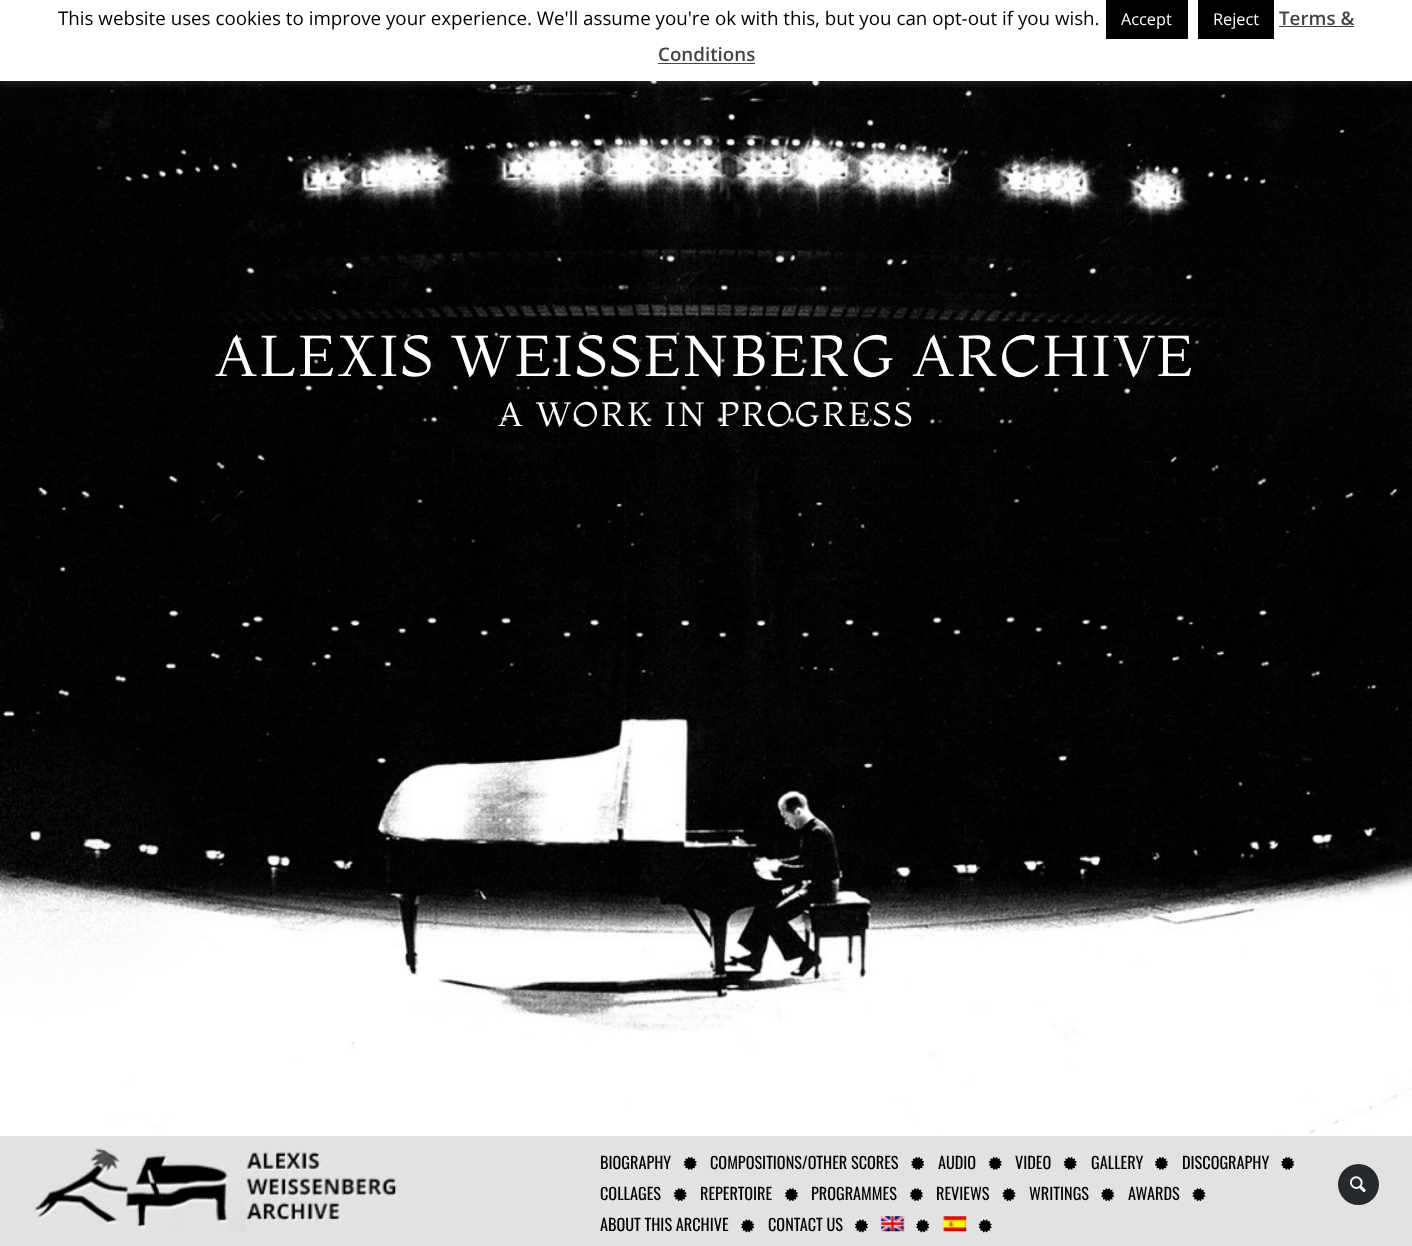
(async () => {
const canvas = document.querySelector("canvas")
canvas.width = 1412
canvas.height = 1246
const c = canvas.getContext("2d")
c.miterLimit = 4
c.fontKerning = "normal"
function T(s,x,y){c.fillText(s,x,y)}
function R(x,y,w,h){c.fillRect(x,y,w,h)}
async function I(src,x,y,w,h){const img=new Image();img.src=src;await img.decode();c.drawImage(img,x,y,w,h)}
c.fillStyle="#fff"
R(0,0,1412,1246)
await I("1.png",0,81,1412,1055)
c.fillStyle="#acabab4d"
c.filter="blur(6px)"
c.beginPath()
c.rect(0,-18,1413,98)
c.fill()
c.filter="none"
c.fillStyle="#fff"
R(0,0,1412,81)
c.font="18.75px Open Sans"
c.fillStyle="#000"
T("This website uses cookies to improve your experience. We'll assume you're ok with this, but you can opt-out if you wish.",58,25)
R(1106,0,82,39)
c.font="16.25px Open Sans"
c.fillStyle="#fff"
T("Accept",1121,25)
c.fillStyle="#000"
R(1198,0,76,39)
c.fillStyle="#fff"
T("Reject",1213,25)
c.font="600 18.75px Open Sans"
c.fillStyle="#444"
T("Terms &",1279,25)
R(1279,26,75,1)
T("Conditions",658,61)
R(658,63,97,1)
c.letterSpacing="2.5px"
c.font="57.5px Montaga"
c.fillStyle="#fff"
T("ALEXIS WEISSENBERG ARCHIVE",215,376)
c.font="33.75px Montaga"
T("A WORK IN PROGRESS",498,426)
c.fillStyle="#e2e2e2"
R(0,1136,1412,110)
await I("2.png",31,1146,369,87)
c.letterSpacing="0px"
c.font="16.25px Oswald"
c.fillStyle="#000"
T("BIOGRAPHY",600,1169)
await I("3.png",683,1157,14,13)
T("COMPOSITIONS/OTHER SCORES",710,1169)
await I("4.png",911,1157,14,13)
T("AUDIO",938,1169)
await I("3.png",988,1157,14,13)
T("VIDEO",1015,1169)
await I("3.png",1063,1157,14,13)
T("GALLERY",1091,1169)
await I("5.png",1155,1157,13,13)
T("DISCOGRAPHY",1182,1169)
await I("4.png",1281,1157,14,13)
T("COLLAGES",600,1200)
await I("6.png",673,1188,14,14)
T("REPERTOIRE",700,1200)
await I("7.png",785,1188,13,14)
T("PROGRAMMES",811,1200)
await I("7.png",910,1188,13,14)
T("REVIEWS",936,1200)
await I("8.png",1002,1188,14,14)
T("WRITINGS",1029,1200)
await I("9.png",1101,1188,14,13)
T("AWARDS",1128,1200)
await I("8.png",1192,1188,14,14)
T("ABOUT THIS ARCHIVE",600,1231)
await I("10.png",741,1219,14,14)
T("CONTACT US",768,1231)
await I("11.png",855,1219,13,14)
await I("12.png",881,1216,24,16)
await I("10.png",916,1219,14,14)
await I("13.png",943,1216,24,16)
await I("14.png",978,1219,14,14)
c.fillStyle="#252a2f"
c.beginPath()
c.arc(1358.5,1184.5,20.5,0,7)
c.fill()
await I("15.png",1350,1176,16,17)
})()
